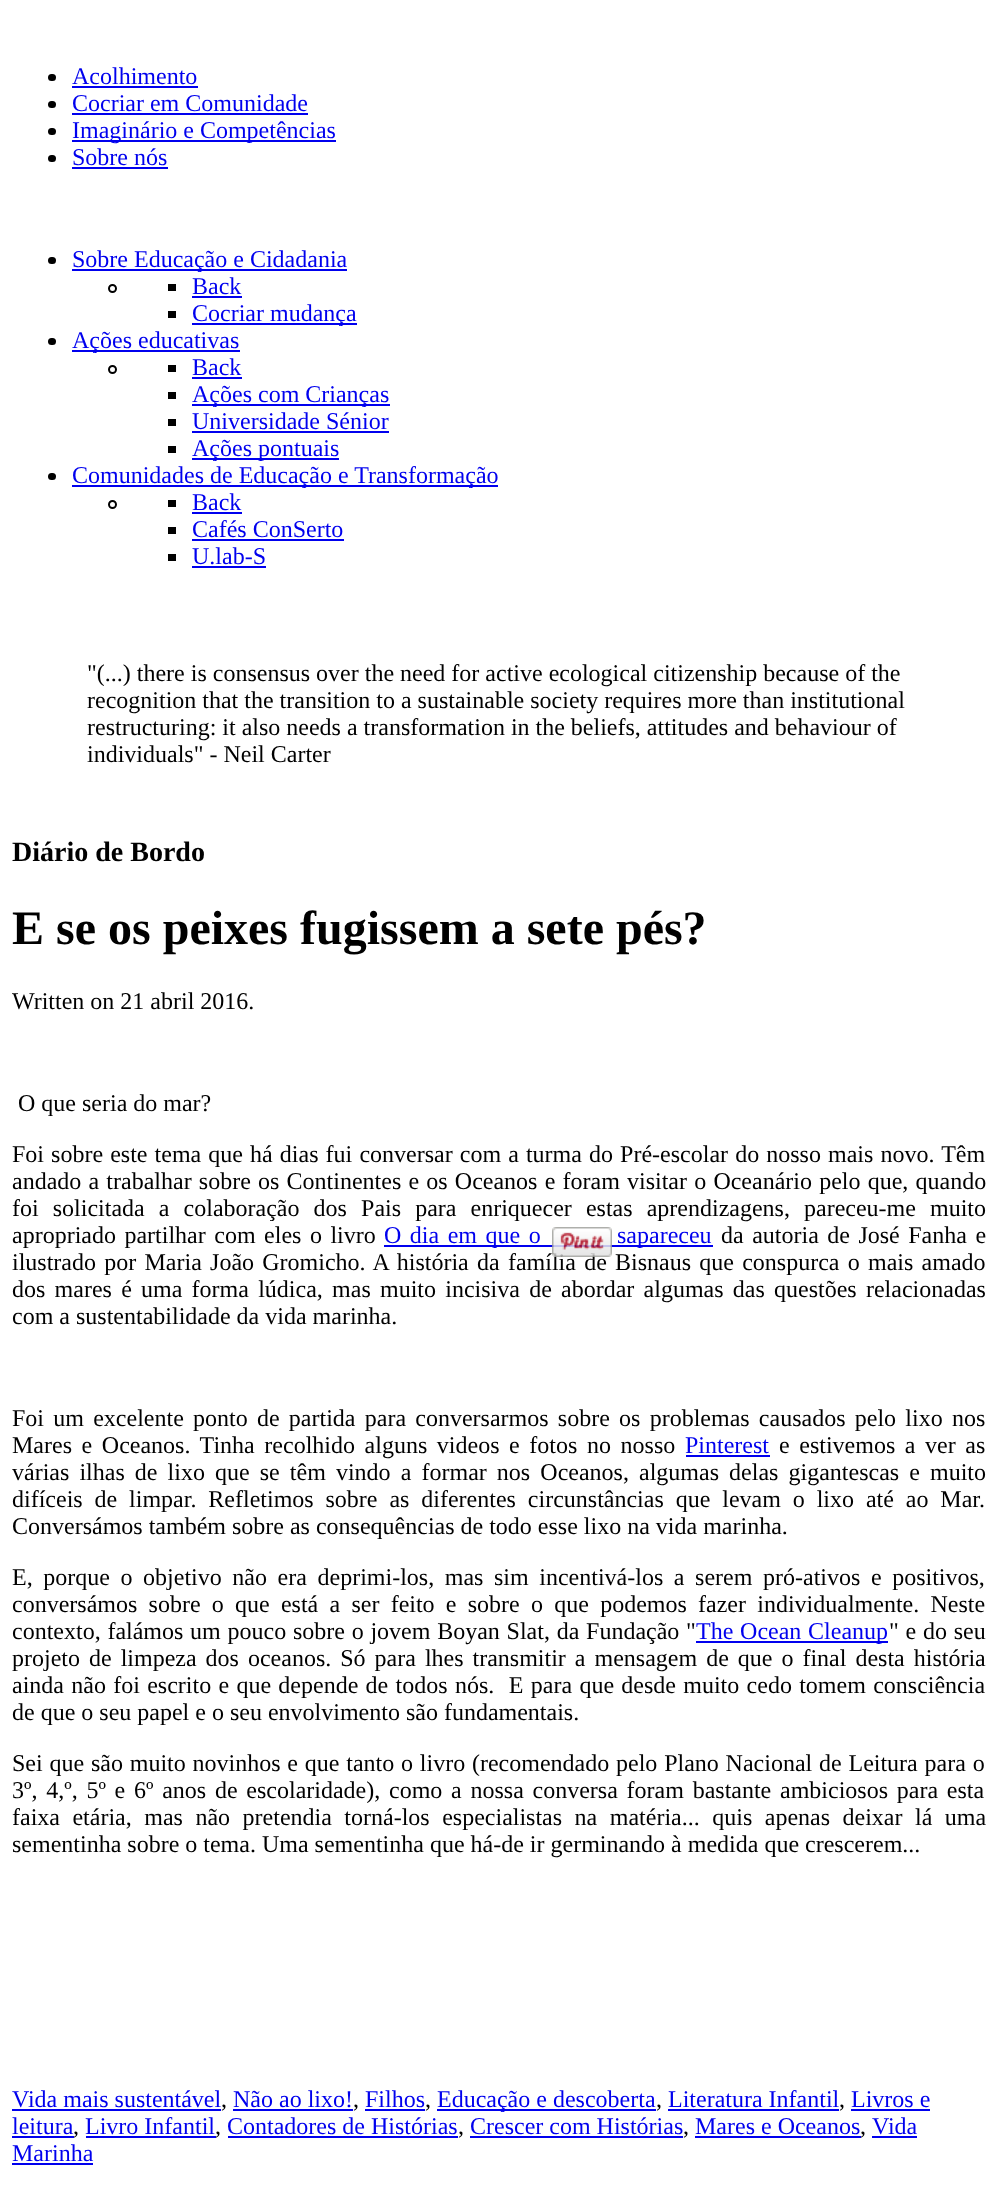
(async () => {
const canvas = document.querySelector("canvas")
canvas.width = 997
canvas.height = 2202
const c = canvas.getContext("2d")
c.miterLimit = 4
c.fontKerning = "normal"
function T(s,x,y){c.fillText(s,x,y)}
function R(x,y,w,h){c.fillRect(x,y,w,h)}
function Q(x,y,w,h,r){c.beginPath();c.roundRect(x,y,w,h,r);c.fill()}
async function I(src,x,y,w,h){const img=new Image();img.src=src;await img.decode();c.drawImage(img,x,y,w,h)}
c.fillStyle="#fff"
R(0,0,997,2202)
c.fillStyle="#000"
Q(48,74,8,7,3.5)
c.font="24px Liberation Serif"
c.fillStyle="#00e"
T("Acolhimento",72,84)
R(72,86,126,2)
c.fillStyle="#000"
Q(48,101,8,7,3.5)
c.fillStyle="#00e"
T("Cocriar em Comunidade",72,111)
R(72,113,236,2)
c.fillStyle="#000"
Q(48,128,8,7,3.5)
c.fillStyle="#00e"
R(72,140,264,2)
T("Imaginário e Competências",72,138)
c.fillStyle="#000"
Q(48,155,8,7,3.5)
c.fillStyle="#00e"
T("Sobre nós",72,165)
R(72,167,96,2)
c.fillStyle="#000"
Q(48,257,8,7,3.5)
c.fillStyle="#00e"
R(72,269,275,2)
T("Sobre Educação e Cidadania",72,267)
c.beginPath()
c.arc(112.5,288.5,3.5,0,7)
c.strokeStyle="#000"
c.lineWidth=2
c.stroke()
c.fillStyle="#000"
R(168,284,8,7)
c.fillStyle="#00e"
T("Back",192,294)
R(192,296,50,2)
c.fillStyle="#000"
R(168,311,8,7)
c.fillStyle="#00e"
R(192,323,165,2)
T("Cocriar mudança",192,321)
c.fillStyle="#000"
Q(48,338,8,7,3.5)
c.fillStyle="#00e"
R(72,350,168,2)
T("Ações educativas",72,348)
c.beginPath()
c.arc(112.5,369.5,3.5,0,7)
c.stroke()
c.fillStyle="#000"
R(168,365,8,7)
c.fillStyle="#00e"
T("Back",192,375)
R(192,377,50,2)
c.fillStyle="#000"
R(168,392,8,7)
c.fillStyle="#00e"
R(192,404,198,2)
T("Ações com Crianças",192,402)
c.fillStyle="#000"
R(168,419,8,7)
c.fillStyle="#00e"
T("Universidade Sénior",192,429)
R(192,431,197,2)
c.fillStyle="#000"
R(168,446,8,7)
c.fillStyle="#00e"
R(192,458,147,2)
T("Ações pontuais",192,456)
c.fillStyle="#000"
Q(48,473,8,7,3.5)
c.fillStyle="#00e"
R(72,485,426,2)
T("Comunidades de Educação e Transformação",72,483)
c.beginPath()
c.arc(112.5,504.5,3.5,0,7)
c.stroke()
c.fillStyle="#000"
R(168,500,8,7)
c.fillStyle="#00e"
T("Back",192,510)
R(192,512,50,2)
c.fillStyle="#000"
R(168,527,8,7)
c.fillStyle="#00e"
T("Cafés ConSerto",192,537)
R(192,539,152,2)
c.fillStyle="#000"
R(168,554,8,7)
c.fillStyle="#00e"
T("U.lab-S",192,564)
R(192,566,74,2)
c.fillStyle="#000"
T("\"(...) there is consensus over the need for active ecological citizenship because of the",87,681)
T("recognition that the transition to a sustainable society requires more than institutional",87,708)
T("restructuring: it also needs a transformation in the beliefs, attitudes and behaviour of",87,735)
T("individuals\" - Neil Carter",87,762)
c.font="bold 28px Liberation Serif"
T("Diário de Bordo",12,861)
c.font="bold 48px Liberation Serif"
T("E se os peixes fugissem a sete pés?",12,944)
c.font="24px Liberation Serif"
T("Written on 21 abril 2016.",12,1009)
T("O que seria do mar?",18,1111)
c.wordSpacing="1.1px"
T("Foi sobre este tema que há dias fui conversar com a turma do Pré-escolar do nosso mais novo. Têm",12,1162)
c.wordSpacing="1.2px"
T("andado a trabalhar sobre os Continentes e os Oceanos e foram visitar o Oceanário pelo que, quando",12,1189)
c.wordSpacing="8.1px"
T("foi solicitada a colaboração dos Pais para enriquecer estas aprendizagens, pareceu-me muito",12,1216)
c.wordSpacing="2.5px"
T("apropriado partilhar com eles o livro",12,1243)
c.fillStyle="#00e"
R(384,1245,329,2)
T("O dia em que o",384,1243)
T("sapareceu",617,1243)
c.fillStyle="#000"
T("da autoria de José Fanha e",721,1243)
c.wordSpacing="2.25px"
T("ilustrado por Maria João Gromicho. A história da família de Bisnaus que conspurca o mais amado",12,1270)
c.wordSpacing="3.25px"
T("dos mares é uma forma lúdica, mas muito incisiva de abordar algumas das questões relacionadas",12,1297)
c.wordSpacing="0px"
T("com a sustentabilidade da vida marinha.",12,1324)
await I("1.png",552,1227,60,30)
c.wordSpacing="3.25px"
T("Foi um excelente ponto de partida para conversarmos sobre os problemas causados pelo lixo nos",12,1426)
c.wordSpacing="3.6px"
T("Mares e Oceanos. Tinha recolhido alguns videos e fotos no nosso",12,1453)
c.wordSpacing="0px"
c.fillStyle="#00e"
T("Pinterest",685,1453)
R(686,1455,84,2)
c.wordSpacing="3.6px"
c.fillStyle="#000"
T("e estivemos a ver as",779,1453)
c.wordSpacing="4.1px"
T("várias ilhas de lixo que se têm vindo a formar nos Oceanos, algumas delas gigantescas e muito",12,1480)
c.wordSpacing="5.9px"
T("difíceis de limpar. Refletimos sobre as diferentes circunstâncias que levam o lixo até ao Mar.",12,1507)
c.wordSpacing="0px"
T("Conversámos também sobre as consequências de todo esse lixo na vida marinha.",12,1534)
c.wordSpacing="4.6px"
T("E, porque o objetivo não era deprimi-los, mas sim incentivá-los a serem pró-ativos e positivos,",12,1585)
c.wordSpacing="5.25px"
T("conversámos sobre o que está a ser feito e sobre o que podemos fazer individualmente. Neste",12,1612)
c.wordSpacing="0.75px"
T("contexto, falámos um pouco sobre o jovem Boyan Slat, da Fundação \"",12,1639)
c.fillStyle="#00e"
R(696,1641,192,2)
T("The Ocean Cleanup",696,1639)
c.fillStyle="#000"
T("\" e do seu",889,1639)
c.wordSpacing="3px"
T("projeto de limpeza dos oceanos. Só para lhes transmitir a mensagem de que o final desta história",12,1666)
c.wordSpacing="1.3px"
T("ainda não foi escrito e que depende de todos nós.  E para que desde muito cedo tomem consciência",12,1693)
c.wordSpacing="0px"
T("de que o seu papel e o seu envolvimento são fundamentais.",12,1720)
c.wordSpacing="0.8px"
T("Sei que são muito novinhos e que tanto o livro (recomendado pelo Plano Nacional de Leitura para o",12,1771)
c.wordSpacing="2.75px"
T("3º, 4,º, 5º e 6º anos de escolaridade), como a nossa conversa foram bastante ambiciosos para esta",12,1798)
c.wordSpacing="6.5px"
T("faixa etária, mas não pretendia torná-los especialistas na matéria... quis apenas deixar lá uma",12,1825)
c.wordSpacing="0px"
T("sementinha sobre o tema. Uma sementinha que há-de ir germinando à medida que crescerem...",12,1852)
c.fillStyle="#00e"
T("Vida mais sustentável",12,2107)
R(12,2109,209,2)
c.fillStyle="#000"
T(",",221,2107)
c.fillStyle="#00e"
T("Não ao lixo!",233,2107)
R(233,2109,120,2)
c.fillStyle="#000"
T(",",353,2107)
c.fillStyle="#00e"
T("Filhos",365,2107)
R(365,2109,60,2)
c.fillStyle="#000"
T(",",425,2107)
c.fillStyle="#00e"
R(437,2109,219,2)
T("Educação e descoberta",437,2107)
c.fillStyle="#000"
T(",",656,2107)
c.fillStyle="#00e"
T("Literatura Infantil",668,2107)
R(668,2109,171,2)
c.fillStyle="#000"
T(",",839,2107)
c.fillStyle="#00e"
T("Livros e",851,2107)
R(851,2109,79,2)
T("leitura",12,2134)
R(12,2136,62,2)
c.fillStyle="#000"
T(",",73,2134)
c.fillStyle="#00e"
T("Livro Infantil",85,2134)
R(86,2136,130,2)
c.fillStyle="#000"
T(",",215,2134)
c.fillStyle="#00e"
T("Contadores de Histórias",227,2134)
R(228,2136,230,2)
c.fillStyle="#000"
T(",",458,2134)
c.fillStyle="#00e"
T("Crescer com Histórias",470,2134)
R(470,2136,213,2)
c.fillStyle="#000"
T(",",683,2134)
c.fillStyle="#00e"
T("Mares e Oceanos",695,2134)
R(695,2136,166,2)
c.fillStyle="#000"
T(",",860,2134)
c.fillStyle="#00e"
T("Vida",872,2134)
R(872,2136,45,2)
T("Marinha",12,2161)
R(12,2163,81,2)
})()
